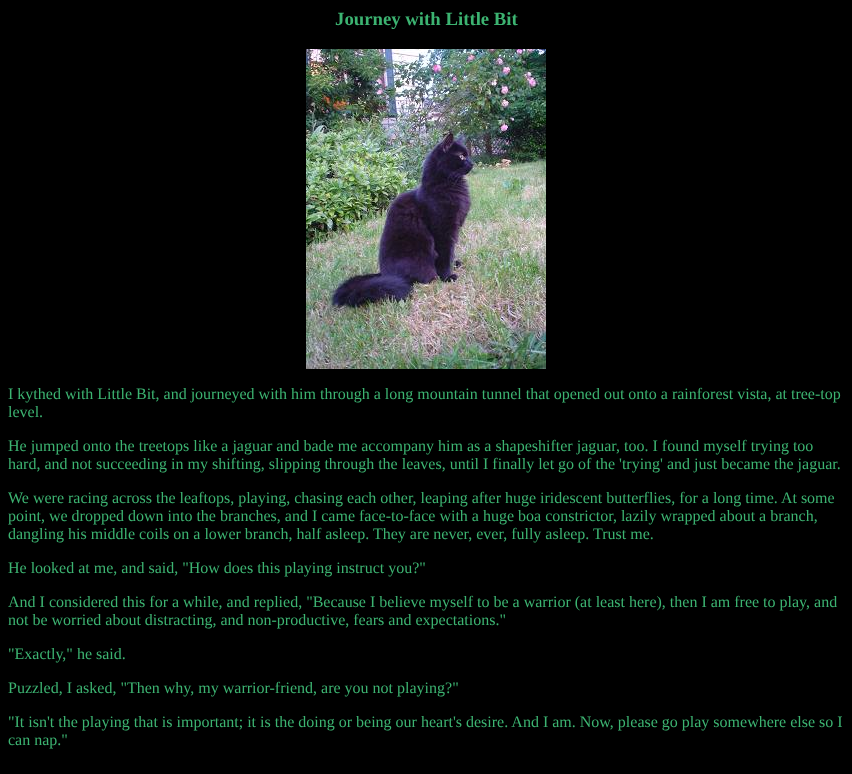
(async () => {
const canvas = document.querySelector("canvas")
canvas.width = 852
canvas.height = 774
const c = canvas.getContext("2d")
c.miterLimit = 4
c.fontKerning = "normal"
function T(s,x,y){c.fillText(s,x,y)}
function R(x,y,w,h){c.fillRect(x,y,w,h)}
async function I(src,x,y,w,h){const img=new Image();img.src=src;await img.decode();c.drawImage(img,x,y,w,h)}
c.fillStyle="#000"
R(0,0,852,774)
c.font="bold 18.75px Liberation Serif"
c.fillStyle="#3cb371"
T("Journey with Little Bit",335,25)
await I("1.png",306,49,240,320)
c.font="16px Liberation Serif"
T("I kythed with Little Bit, and journeyed with him through a long mountain tunnel that opened out onto a rainforest vista, at tree-top",8,399)
T("level.",8,417)
T("He jumped onto the treetops like a jaguar and bade me accompany him as a shapeshifter jaguar, too. I found myself trying too",8,451)
T("hard, and not succeeding in my shifting, slipping through the leaves, until I finally let go of the 'trying' and just became the jaguar.",8,469)
T("We were racing across the leaftops, playing, chasing each other, leaping after huge iridescent butterflies, for a long time. At some",8,503)
T("point, we dropped down into the branches, and I came face-to-face with a huge boa constrictor, lazily wrapped about a branch,",8,521)
T("dangling his middle coils on a lower branch, half asleep. They are never, ever, fully asleep. Trust me.",8,539)
T("He looked at me, and said, \"How does this playing instruct you?\"",8,573)
T("And I considered this for a while, and replied, \"Because I believe myself to be a warrior (at least here), then I am free to play, and",8,607)
T("not be worried about distracting, and non-productive, fears and expectations.\"",8,625)
T("\"Exactly,\" he said.",8,659)
T("Puzzled, I asked, \"Then why, my warrior-friend, are you not playing?\"",8,693)
T("\"It isn't the playing that is important; it is the doing or being our heart's desire. And I am. Now, please go play somewhere else so I",8,727)
T("can nap.\"",8,745)
})()
